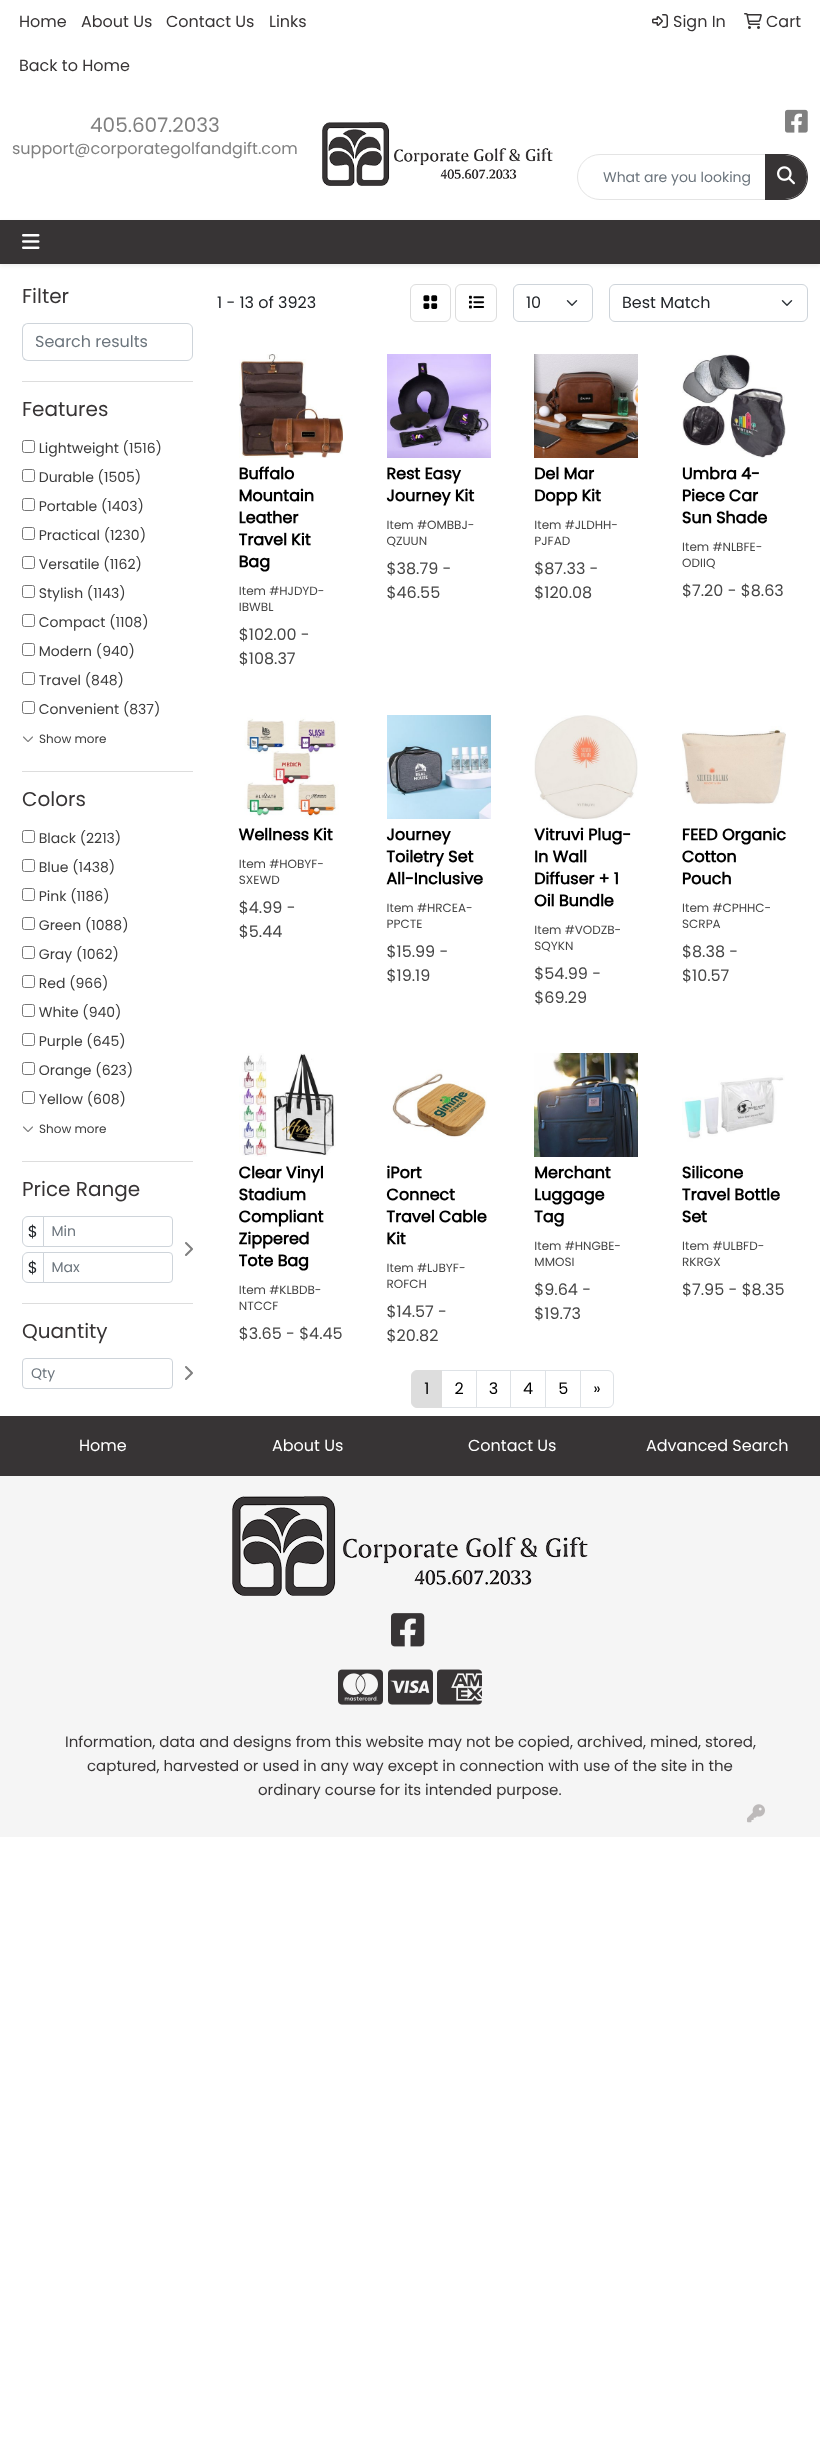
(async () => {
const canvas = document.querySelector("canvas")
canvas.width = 820
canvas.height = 2463
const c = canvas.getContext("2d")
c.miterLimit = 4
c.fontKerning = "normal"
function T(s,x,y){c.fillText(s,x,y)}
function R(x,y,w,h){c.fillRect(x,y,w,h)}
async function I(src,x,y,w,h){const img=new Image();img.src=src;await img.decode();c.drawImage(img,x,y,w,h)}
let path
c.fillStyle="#fff"
R(0,0,820,2463)
c.font="16px Poppins"
c.fillStyle="#373435"
T("Home",19,27)
T("About Us",81,27)
T("Contact Us",166,27)
T("Links",269,27)
T("Back to Home",19,71)
await I("1.png",652,14,16,14)
T("Sign In",673,27)
await I("2.png",744,13,18,16)
T("Cart",766,27)
c.font="20px Poppins"
c.fillStyle="#808080"
T("405.607.2033",90,132)
c.font="16px Poppins"
T("support@corporategolfandgift.com",12,154)
await I("3.png",322,122,231,64)
await I("4.png",785,109,23,24)
c.beginPath()
c.roundRect(577.5,154.5,188,45,[22.5,0,0,22.5])
c.strokeStyle="#e4e4e4"
c.stroke()
c.font="14px Poppins"
c.fillStyle="#6c757d"
T("What are you looking",603,182)
c.fillStyle="#373435"
c.beginPath()
c.roundRect(765,155,42,44,[0,22,22,0])
c.fill()
path = new Path2D("M765 154h20c13 0 23 10 23 23c0 13-10 23-23 23h-20zm0 1h20c12 0 22 10 22 22c0 12-10 22-22 22h-20z")
c.fill(path,"evenodd")
await I("5.png",777,166,18,19)
c.fillStyle="#00000012"
c.filter="blur(2px)"
c.beginPath()
c.rect(0,222,820,44)
c.fill()
c.filter="none"
c.fillStyle="#373435"
R(0,220,820,44)
await I("6.png",22,234,18,15)
await I("7.png",22,284,786,1124)
R(0,1416,820,60)
c.font="16px Poppins"
c.fillStyle="#fff"
T("Home",79,1451)
T("About Us",272,1451)
T("Contact Us",468,1451)
T("Advanced Search",646,1451)
c.fillStyle="#f5f5f5"
R(0,1476,820,361)
await I("8.png",232,1496,356,100)
await I("9.png",391,1613,34,34)
await I("10.png",338,1669,45,36)
await I("11.png",388,1669,45,36)
await I("12.png",437,1669,45,36)
c.font="15px Poppins"
c.fillStyle="#373435"
T("Information, data and designs from this website may not be copied, archived, mined, stored,",65,1747)
T("captured, harvested or used in any way except in connection with use of the site in the",87,1771)
T("ordinary course for its intended purpose.",258,1795)
await I("13.png",747,1804,18,19)
})()
